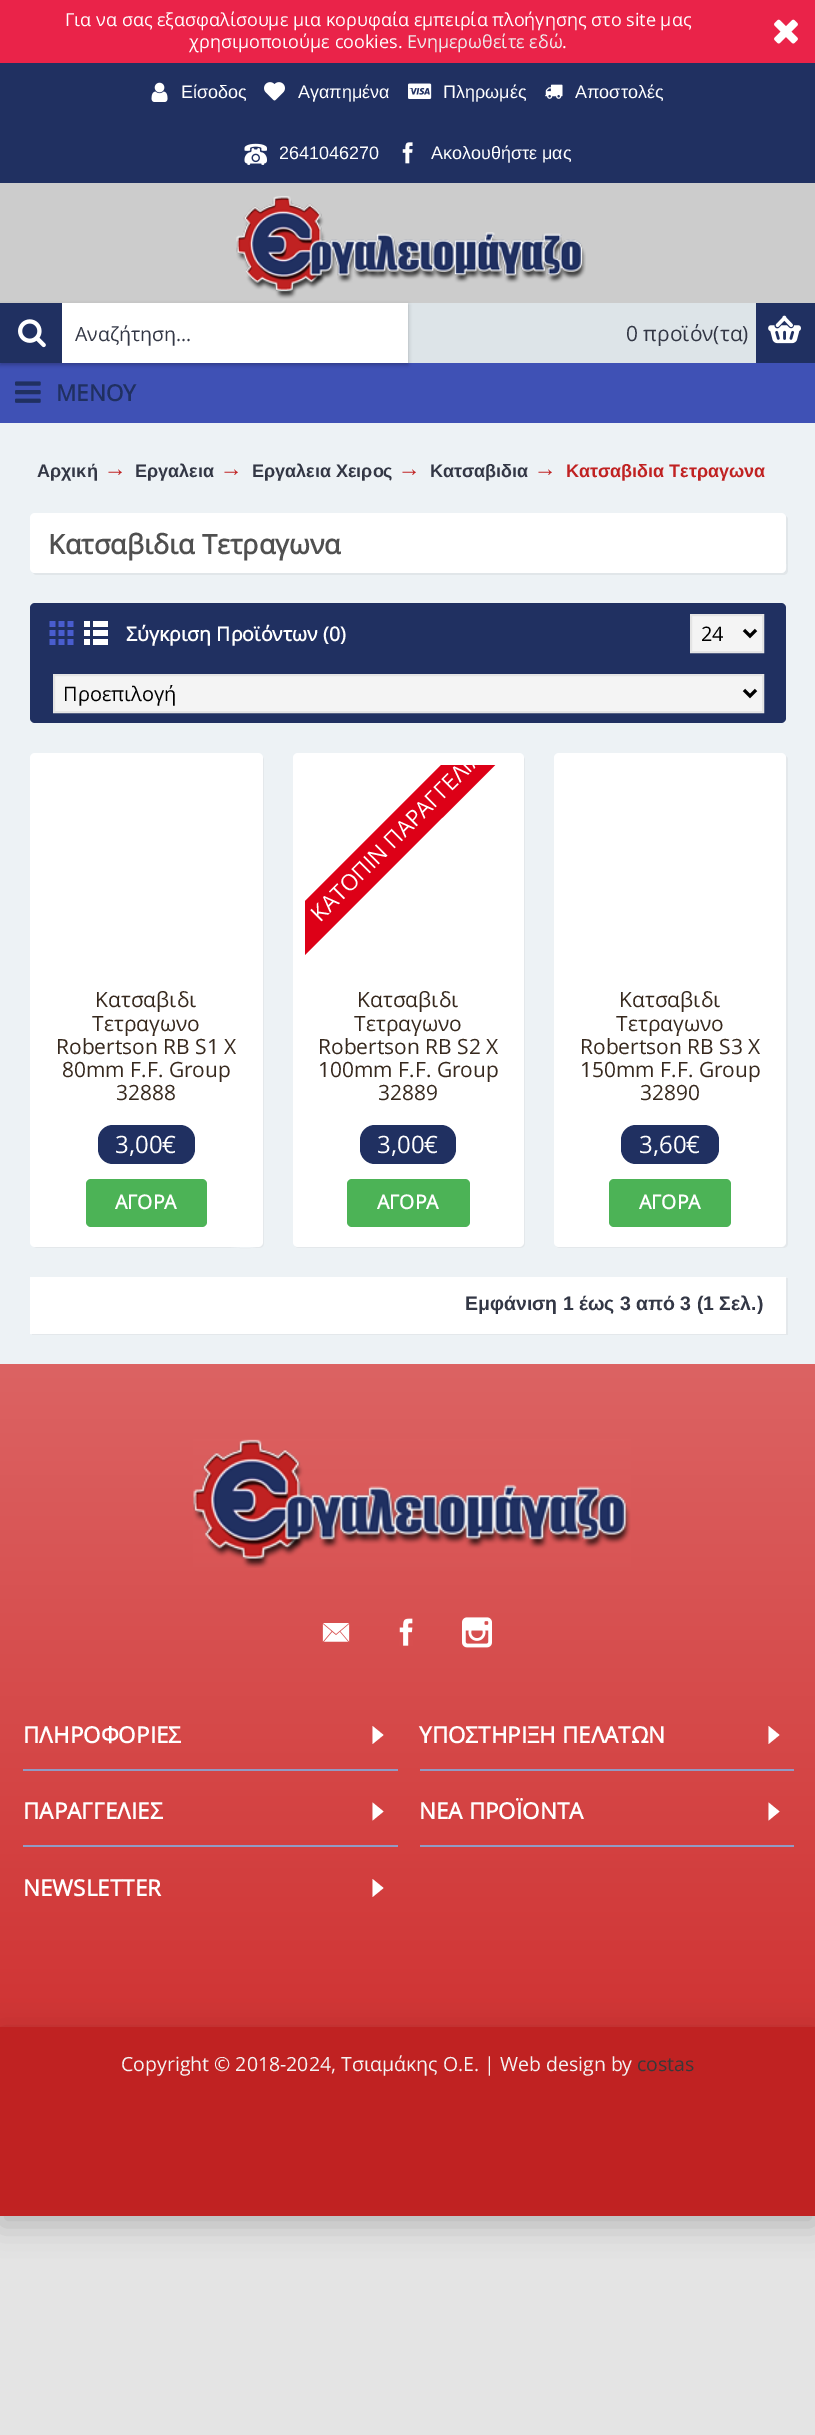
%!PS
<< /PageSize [815 2435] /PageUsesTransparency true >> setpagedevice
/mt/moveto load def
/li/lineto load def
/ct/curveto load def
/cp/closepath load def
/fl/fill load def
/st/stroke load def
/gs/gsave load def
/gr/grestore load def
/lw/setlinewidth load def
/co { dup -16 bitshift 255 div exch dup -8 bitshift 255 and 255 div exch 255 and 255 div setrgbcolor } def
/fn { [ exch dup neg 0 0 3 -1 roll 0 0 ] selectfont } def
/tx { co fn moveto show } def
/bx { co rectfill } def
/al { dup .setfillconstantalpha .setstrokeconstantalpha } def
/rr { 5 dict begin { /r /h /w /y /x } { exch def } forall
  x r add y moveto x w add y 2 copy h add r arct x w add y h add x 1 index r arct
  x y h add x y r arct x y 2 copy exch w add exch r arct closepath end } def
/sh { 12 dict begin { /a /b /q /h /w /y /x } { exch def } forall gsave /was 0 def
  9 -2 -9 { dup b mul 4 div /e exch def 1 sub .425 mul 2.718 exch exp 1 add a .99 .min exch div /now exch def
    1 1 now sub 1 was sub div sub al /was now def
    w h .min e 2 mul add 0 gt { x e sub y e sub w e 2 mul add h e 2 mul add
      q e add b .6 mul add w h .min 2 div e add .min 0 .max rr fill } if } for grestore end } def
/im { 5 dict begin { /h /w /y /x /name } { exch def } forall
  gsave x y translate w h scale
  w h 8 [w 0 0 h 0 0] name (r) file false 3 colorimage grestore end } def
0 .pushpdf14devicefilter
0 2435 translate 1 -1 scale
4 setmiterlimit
0 0 815 2435 16#E4E4E4 bx
0 0 815 63 16#EA2349 bx
(media/1.raw) 774 19 24 25 im
0 183 815 120 16#CCCCCC bx
0 63 815 120 16#203061 bx
(media/2.raw) 151 82 17 20 im
(media/3.raw) 264 82 21 19 im
(media/4.raw) 408 83 24 16 im
(media/5.raw) 545 84 18 15 im
(media/6.raw) 244 143 23 22 im
(media/7.raw) 402 142 11 22 im
(media/8.raw) 236 196 350 103 im
408 303 348 60 16#DDE4E8 bx
0 363 815 60 16#3F51B5 bx
16#000000 co
0 305 408 60 0 2 .25 sh
0 303 62 60 16#203061 bx
(media/9.raw) 18 319 28 29 im
62 303 346 60 16#FFFFFF bx
756 303 59 60 16#203061 bx
(media/10.raw) 768 315 33 29 im
(media/11.raw) 15 381 26 22 im
0 423 815 941 16#EDF2F5 bx
16#E1E6E9 co
33 573 mt 34 574 35 575 37 575 ct 783 575 li 786 575 788 573 788 570 ct 788 520 li 788 518 787 517 786 516 ct 786 560 li 786 563 788 573 782 573 ct cp fl
16#FFFFFF co
30 513 756 60 5 rr fl
16#203061 co
30 603 756 120 5 rr fl
(media/12.raw) 49 621 25 24 im
(media/13.raw) 84 621 24 24 im
16#F4F4F4 co
691 615 mt 763 615 li 763 652 li 691 652 li cp gs fl gr
16#E4E4E4 co
2 lw
st
16#000000 co
3 lw
744 630 mt 750 636 li 756 630 li st
16#F4F4F4 co
54 675 mt 763 675 li 763 712 li 54 712 li cp gs fl gr
16#E4E4E4 co
2 lw
st
16#000000 co
3 lw
744 690 mt 750 696 li 756 690 li st
16#E4E8EB co
33 1246 mt 34 1247 36 1248 37 1248 ct 259 1248 li 262 1248 264 1246 264 1243 ct 264 760 li 264 759 263 757 262 756 ct 262 1242 li 262 1253 223 1246 221 1246 ct cp fl
16#FFFFFF co
30 753 233 494 5 rr fl
16#203061 co
98 1125 97 39 15 rr fl
16#4CB356 co
86 1179 121 48 5 rr fl
16#E4E8EB co
295 1246 mt 296 1247 297 1248 299 1248 ct 520 1248 li 523 1248 525 1246 525 1243 ct 525 760 li 525 759 524 757 523 756 ct 524 1242 li 524 1244 521 1246 519 1246 ct 297 1246 li cp fl
16#FFFFFF co
293 753 231 494 5 rr fl
gs
305 765 207 209 rectclip
16#DD0017 co
238 968 mt 538 668 li 565 695 li 265 995 li cp fl
gr
16#203061 co
360 1125 96 39 15 rr fl
16#4CB356 co
347 1179 123 48 5 rr fl
16#E4E8EB co
556 1246 mt 557 1247 558 1248 560 1248 ct 783 1248 li 786 1248 788 1246 788 1243 ct 788 760 li 788 758 787 757 786 756 ct 786 1242 li 786 1244 784 1246 782 1246 ct 558 1246 li cp fl
16#FFFFFF co
554 753 232 494 5 rr fl
16#203061 co
621 1125 98 39 15 rr fl
16#4CB356 co
609 1179 122 48 5 rr fl
16#E4E8EB co
32 1334 mt 32 1335 li 788 1335 li 788 1278 li 786 1278 li 786 1334 li cp fl
30 1277 756 57 16#FFFFFF bx
gs 0 1364 mt 815 1364 li 815 2027 li 0 2027 li cp clip newpath
<< /ShadingType 2 /ColorSpace /DeviceRGB /Coords [408 2216 408 1364] /Extend [true true] /Function << /FunctionType 2 /Domain [0 1] /C0 [.804 .149 .149] /C1 [.863 .388 .388] /N 1 >> >> shfill gr
(media/14.raw) 193 1439 438 129 im
(media/15.raw) 322 1623 28 19 im
(media/16.raw) 399 1618 14 28 im
(media/17.raw) 462 1617 30 31 im
23 1769 375 2 16#929AC3 bx
16#FFFFFF co
372.5 1726 mt 372.5 1744 li 383.5 1735 li cp fl
420 1769 374 2 16#929AC3 bx
16#FFFFFF co
768.5 1726 mt 768.5 1744 li 779.5 1735 li cp fl
23 1845 375 2 16#929AC3 bx
16#FFFFFF co
372.5 1802.5 mt 372.5 1820.5 li 383.5 1811.5 li cp fl
420 1845 374 2 16#929AC3 bx
16#FFFFFF co
768.5 1802.5 mt 768.5 1820.5 li 779.5 1811.5 li cp fl
372.5 1879 mt 372.5 1897 li 383.5 1888 li cp fl
16#000000 co
0 2036 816 189 0 15 .2 sh
0 2027 815 189 16#C02222 bx
(Για να σας εξασφαλίσουμε μια κορυφαία εμπειρία πλοήγησης στο site μας) 65 26 /OpenSans-Regular 18 16#FFFFFF tx
(χρησιμοποιούμε cookies.) 189 48 /OpenSans-Regular 18 16#FFFFFF tx
(Ενημερωθείτε εδώ) 407 48 /OpenSans-Regular 18 16#EEEEEE tx
(.) 562 48 /OpenSans-Regular 18 16#FFFFFF tx
(Είσοδος) 181 98 /LiberationSans-Regular 18 16#FFFFFF tx
(Αγαπημένα) 298 98 /LiberationSans-Regular 18 16#FFFFFF tx
(Πληρωμές) 443 98 /LiberationSans-Regular 18 16#FFFFFF tx
(Αποστολές) 575 98 /LiberationSans-Regular 18 16#FFFFFF tx
(2641046270) 279 159 /LiberationSans-Regular 18 16#FFFFFF tx
(Ακολουθήστε μας) 431 159 /LiberationSans-Regular 18 16#FFFFFF tx
(Αναζήτηση...) 75 341 /OpenSans-Regular 19.5 16#333745 tx
(0 προϊόν\(τα\)) 626 341 /OpenSans-Regular 21 16#333745 tx
(ΜΕΝΟΥ) 56 401 /OpenSans-Bold 22.5 16#203061 tx
(Αρχική) 37 477 /LiberationSans-Bold 18 16#333745 tx
(→) 104 476 /LiberationSerif-Regular 22.5 16#C02222 tx
(Εργαλεια) 135 477 /LiberationSans-Bold 18 16#333745 tx
(→) 220 476 /LiberationSerif-Regular 22.5 16#C02222 tx
(Εργαλεια Χειρος) 252 477 /LiberationSans-Bold 18 16#333745 tx
(→) 398 476 /LiberationSerif-Regular 22.5 16#C02222 tx
(Κατσαβιδια) 430 477 /LiberationSans-Bold 18 16#333745 tx
(→) 534 476 /LiberationSerif-Regular 22.5 16#C02222 tx
(Κατσαβιδια Τετραγωνα) 566 477 /LiberationSans-Bold 18 16#C02222 tx
(Κατσαβιδια Τετραγωνα) 48 554 /OpenSans-Bold 27 16#505050 tx
(Σύγκριση Προϊόντων \(0\)) 126 641 /OpenSans-Bold 19.5 16#FFFFFF tx
(24) 701 641 /OpenSans-Regular 20 16#000000 tx
(Προεπιλογή) 63 701 /OpenSans-Regular 20 16#000000 tx
(Κατσαβιδι) 95 1007 /OpenSans-Regular 21 16#37291E tx
(Τετραγωνο) 92 1031 /OpenSans-Regular 21 16#37291E tx
(Robertson RB S1 X) 56 1054 /OpenSans-Regular 21 16#37291E tx
(80mm F.F. Group) 62 1077 /OpenSans-Regular 21 16#37291E tx
(32888) 116 1100 /OpenSans-Regular 21 16#37291E tx
(3,00€) 115 1153 /OpenSans-Regular 24 16#FFFFFF tx
(ΑΓΟΡΑ) 115 1209 /OpenSans-Bold 19.5 16#FFFFFF tx
gs
305 765 207 209 rectclip
/OpenSans-Regular 22.5 fn
gs 320 923 translate -45 rotate 0 0 mt (ΚΑΤΟΠΙΝ ΠΑΡΑΓΓΕΛΙΑΣ) show gr
gr
(Κατσαβιδι) 357 1007 /OpenSans-Regular 21 16#37291E tx
(Τετραγωνο) 354 1031 /OpenSans-Regular 21 16#37291E tx
(Robertson RB S2 X) 318 1054 /OpenSans-Regular 21 16#37291E tx
(100mm F.F. Group) 318 1077 /OpenSans-Regular 21 16#37291E tx
(32889) 378 1100 /OpenSans-Regular 21 16#37291E tx
(3,00€) 377 1153 /OpenSans-Regular 24 16#FFFFFF tx
(ΑΓΟΡΑ) 377 1209 /OpenSans-Bold 19.5 16#FFFFFF tx
(Κατσαβιδι) 619 1007 /OpenSans-Regular 21 16#37291E tx
(Τετραγωνο) 616 1031 /OpenSans-Regular 21 16#37291E tx
(Robertson RB S3 X) 580 1054 /OpenSans-Regular 21 16#37291E tx
(150mm F.F. Group) 580 1077 /OpenSans-Regular 21 16#37291E tx
(32890) 640 1100 /OpenSans-Regular 21 16#37291E tx
(3,60€) 639 1153 /OpenSans-Regular 24 16#FFFFFF tx
(ΑΓΟΡΑ) 639 1209 /OpenSans-Bold 19.5 16#FFFFFF tx
(Εμφάνιση 1 έως 3 από 3 \(1 Σελ.\)) 465 1310 /LiberationSans-Bold 19.5 16#333745 tx
(ΠΛΗΡΟΦΟΡΙΕΣ) 23 1743 /OpenSans-Bold 22.5 16#FFFFFF tx
(ΥΠΟΣΤΗΡΙΞΗ ΠΕΛΑΤΩΝ) 419 1743 /OpenSans-Bold 22.5 16#FFFFFF tx
(ΠΑΡΑΓΓΕΛΙΕΣ) 23 1819 /OpenSans-Bold 22.5 16#FFFFFF tx
(ΝΕΑ ΠΡΟΪΟΝΤΑ) 419 1819 /OpenSans-Bold 22.5 16#FFFFFF tx
(NEWSLETTER) 23 1896 /OpenSans-Bold 22.5 16#FFFFFF tx
(Copyright © 2018-2024, Τσιαμάκης Ο.Ε. | Web design by) 121 2071 /OpenSans-Regular 19.5 16#F4F4F4 tx
(costas) 637 2071 /OpenSans-Regular 19.5 16#383838 tx
.poppdf14devicefilter showpage
